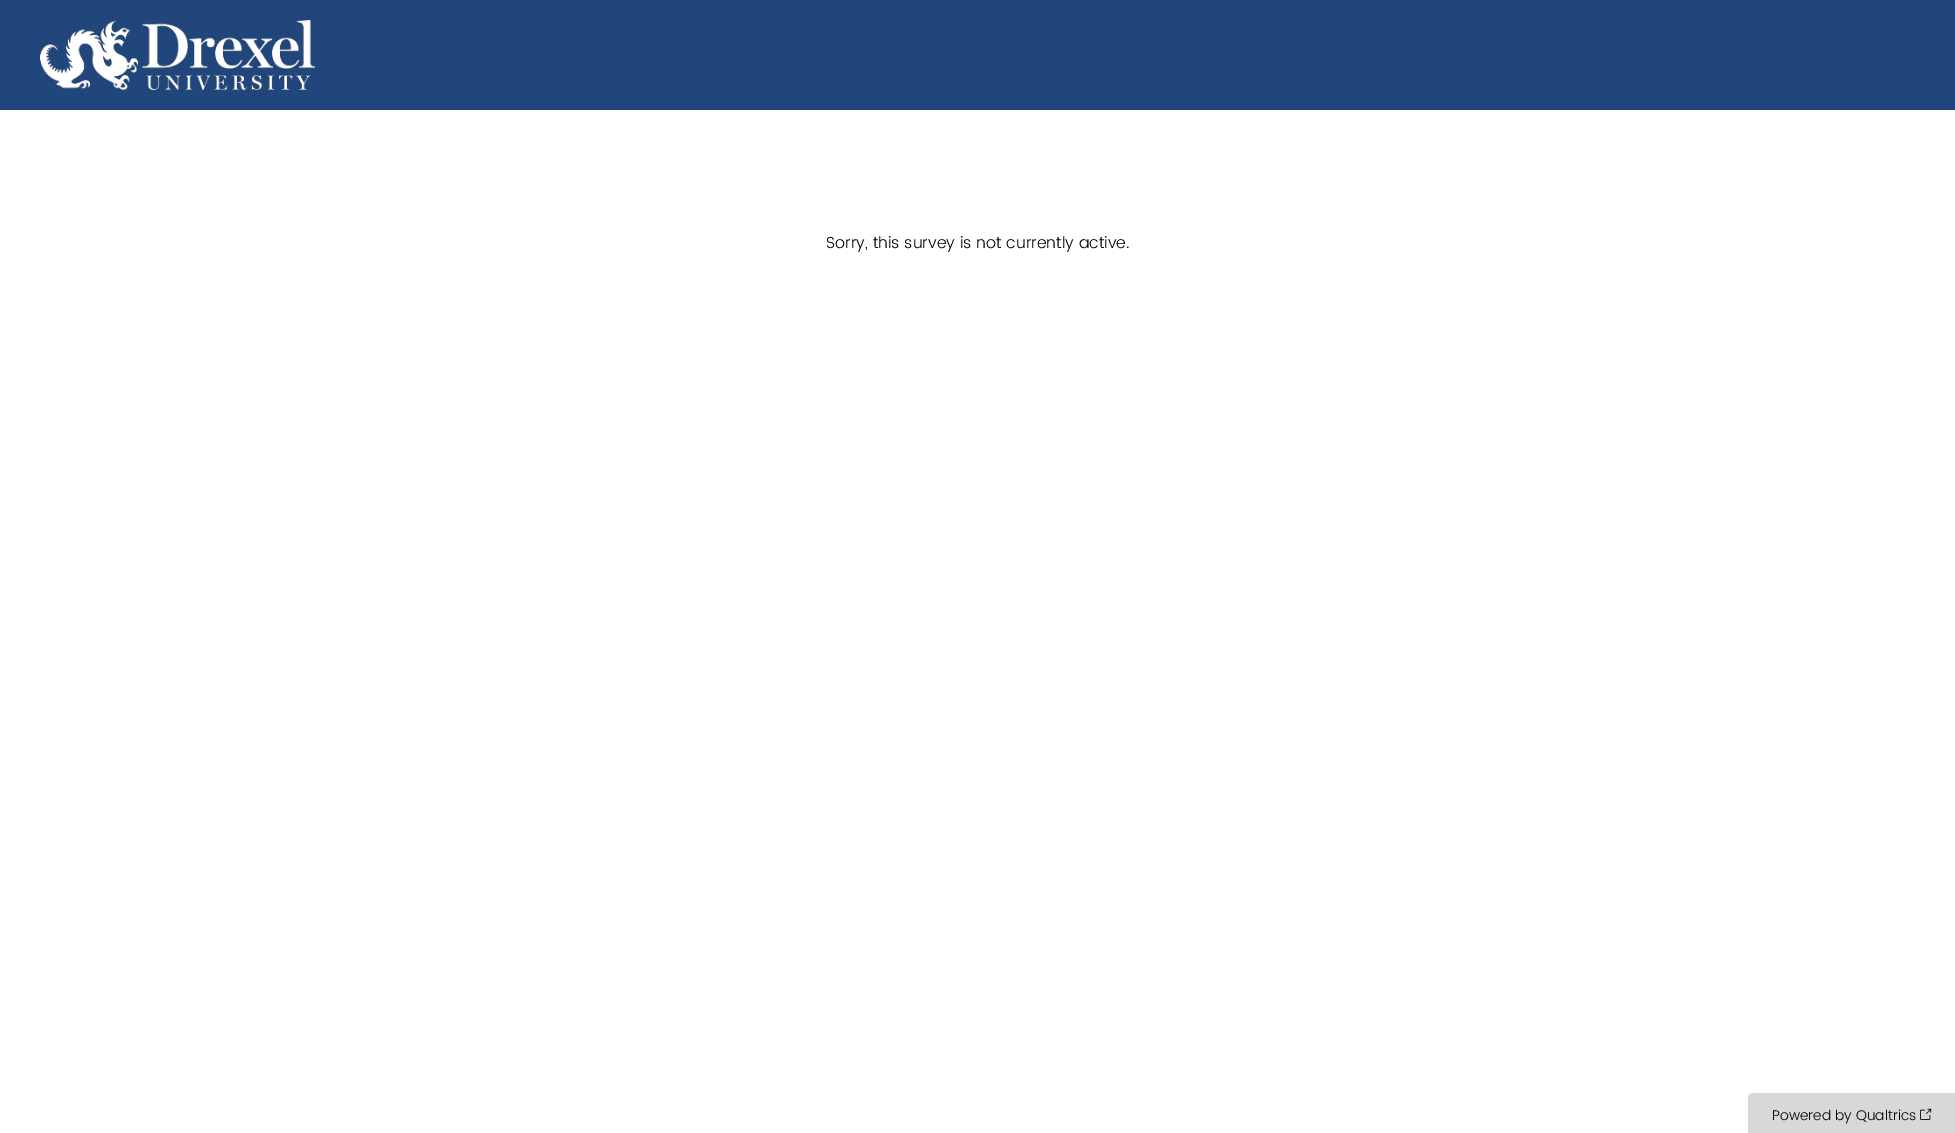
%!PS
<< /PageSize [1955 1133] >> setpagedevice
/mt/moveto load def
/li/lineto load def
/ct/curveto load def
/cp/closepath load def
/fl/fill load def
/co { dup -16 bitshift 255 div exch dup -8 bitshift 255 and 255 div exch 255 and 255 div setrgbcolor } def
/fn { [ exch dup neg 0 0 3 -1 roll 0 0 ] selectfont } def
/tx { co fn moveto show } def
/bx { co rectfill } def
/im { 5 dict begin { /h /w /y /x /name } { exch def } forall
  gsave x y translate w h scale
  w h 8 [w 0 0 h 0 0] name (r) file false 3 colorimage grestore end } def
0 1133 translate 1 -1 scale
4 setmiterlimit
0 0 1955 1133 16#FFFFFF bx
0 0 1955 110 16#21467B bx
(media/1.raw) 40 20 275 70 im
16#D8D8DA co
1753 1093 mt 1955 1093 li 1955 1133 li 1748 1133 li 1748 1098 li 1748 1095 1750 1093 1753 1093 ct cp fl
(media/2.raw) 1920 1108 12 12 im
(Sorry, this survey is not currently active.) 826 248 /Poppins-Light 16 16#000000 tx
(Powered by Qualtrics) 1772 1120 /Poppins-Light 14 16#000000 tx
showpage
